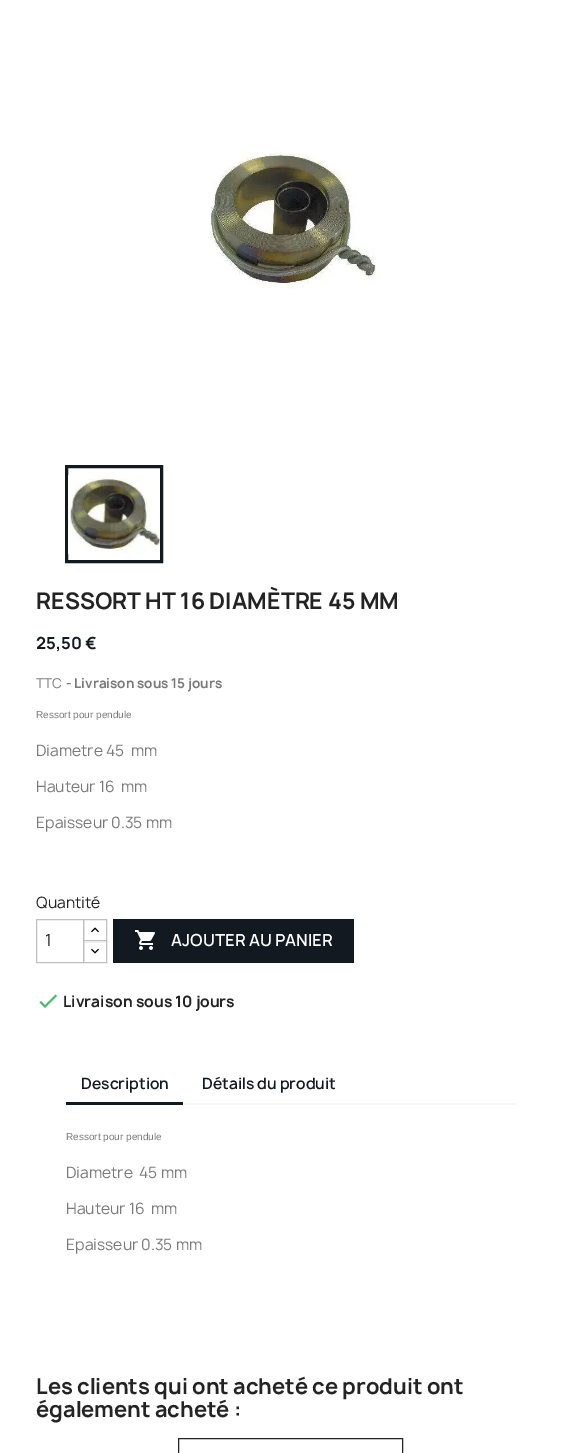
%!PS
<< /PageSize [581 1453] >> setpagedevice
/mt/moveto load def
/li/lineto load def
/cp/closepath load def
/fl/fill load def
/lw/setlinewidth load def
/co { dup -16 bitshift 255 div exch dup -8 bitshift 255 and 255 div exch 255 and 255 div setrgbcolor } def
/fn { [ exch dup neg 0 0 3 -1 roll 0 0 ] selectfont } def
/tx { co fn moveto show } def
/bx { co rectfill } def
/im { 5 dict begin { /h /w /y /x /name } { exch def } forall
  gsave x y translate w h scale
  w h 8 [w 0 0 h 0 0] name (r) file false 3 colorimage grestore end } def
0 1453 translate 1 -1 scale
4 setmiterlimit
0 0 581 1453 16#FFFFFF bx
(media/1.raw) 209 151 167 138 im
16#131921 co
3 lw
66.5 466.5 95 95 rectstroke
(media/2.raw) 68 475 92 79 im
16#BFBFBF co
1 lw
83.5 919.5 23 22 rectstroke
84 941 22 1 16#FFFFFF bx
16#BFBFBF co
83.5 940.5 23 22 rectstroke
36.5 919.5 47 43 rectstroke
(media/3.raw) 91 927 8 6 im
(media/4.raw) 91 948 8 6 im
113 919 241 44 16#131921 bx
(media/5.raw) 135 930 20 20 im
16#4CBB6C co
45 1005 mt 55.5 994.5 li 57 996 li 45 1008 li 39.5 1002.5 li 41 1001 li cp fl
183 1103 333 2 16#F6F6F6 bx
66 1102 117 3 16#131921 bx
16#232323 co
178.5 1438.5 224 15 rectstroke
(RESSORT HT 16 DIAMÈTRE 45 MM) 36 609 /Manrope-Bold 22 16#232323 tx
(25,50 €) 36 649 /Manrope-Bold 16 16#131921 tx
(TTC) 36 688 /Manrope-Regular 13 16#7A7A7A tx
(-) 66 688 /Manrope-Bold 13 16#7A7A7A tx
(Livraison sous 15 jours) 74 688 /Manrope-Bold 13 16#7A7A7A tx
(Ressort pour pendule) 36 718 /LiberationSans-Regular 10 16#7A7A7A tx
(Diametre 45  mm) 36 756 /Manrope-Regular 15 16#7A7A7A tx
(Hauteur 16  mm) 36 792 /Manrope-Regular 15 16#7A7A7A tx
(Epaisseur 0.35 mm) 36 828 /Manrope-Regular 15 16#7A7A7A tx
(Quantité) 36 908 /Manrope-Regular 15 16#232323 tx
(1) 45 946 /Manrope-Regular 16 16#232323 tx
(AJOUTER AU PANIER) 171 946 /Manrope-SemiBold 16 16#FFFFFF tx
(Livraison sous 10 jours) 63 1007 /Manrope-Bold 15 16#232323 tx
(Description) 81 1089 /Manrope-SemiBold 15 16#131921 tx
(Détails du produit) 202 1089 /Manrope-SemiBold 15 16#131921 tx
(Ressort pour pendule) 66 1140 /LiberationSans-Regular 10 16#7A7A7A tx
(Diametre  45 mm) 66 1178 /Manrope-Regular 15 16#7A7A7A tx
(Hauteur 16  mm) 66 1214 /Manrope-Regular 15 16#7A7A7A tx
(Epaisseur 0.35 mm) 66 1250 /Manrope-Regular 15 16#7A7A7A tx
(Les clients qui ont acheté ce produit ont) 36 1394 /Manrope-Bold 21 16#232323 tx
(également acheté :) 36 1417 /Manrope-Bold 21 16#232323 tx
showpage
